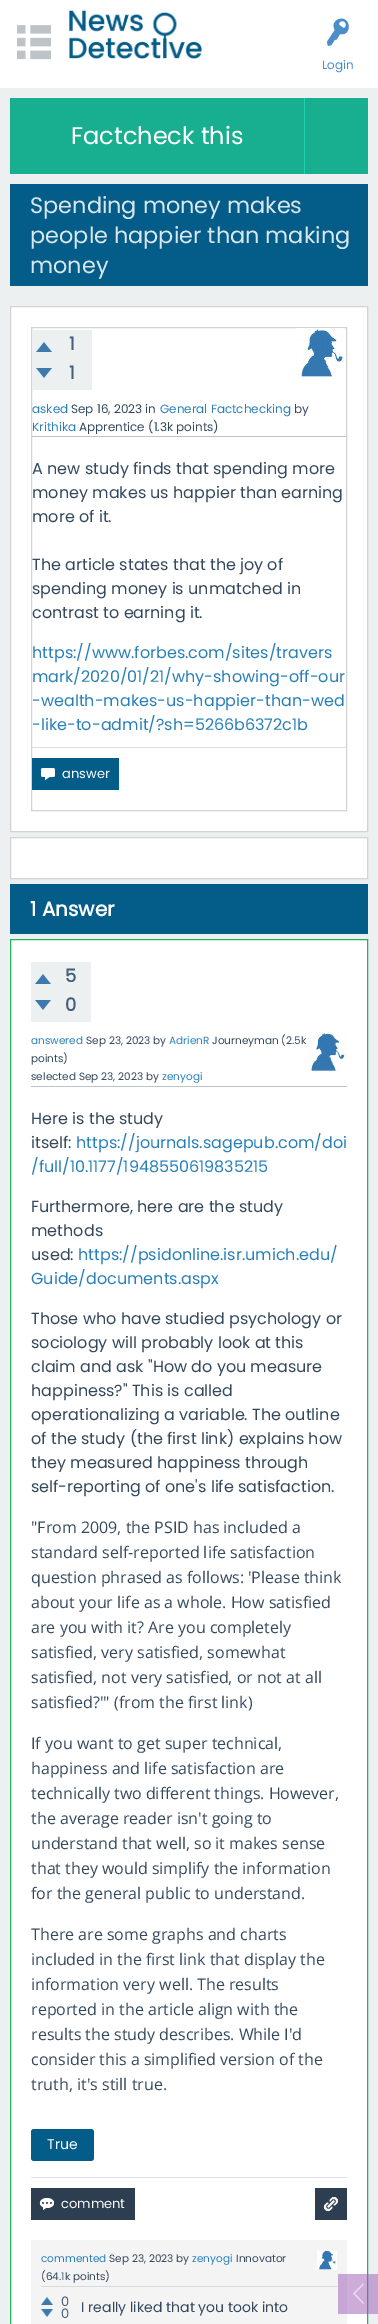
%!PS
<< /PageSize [378 2324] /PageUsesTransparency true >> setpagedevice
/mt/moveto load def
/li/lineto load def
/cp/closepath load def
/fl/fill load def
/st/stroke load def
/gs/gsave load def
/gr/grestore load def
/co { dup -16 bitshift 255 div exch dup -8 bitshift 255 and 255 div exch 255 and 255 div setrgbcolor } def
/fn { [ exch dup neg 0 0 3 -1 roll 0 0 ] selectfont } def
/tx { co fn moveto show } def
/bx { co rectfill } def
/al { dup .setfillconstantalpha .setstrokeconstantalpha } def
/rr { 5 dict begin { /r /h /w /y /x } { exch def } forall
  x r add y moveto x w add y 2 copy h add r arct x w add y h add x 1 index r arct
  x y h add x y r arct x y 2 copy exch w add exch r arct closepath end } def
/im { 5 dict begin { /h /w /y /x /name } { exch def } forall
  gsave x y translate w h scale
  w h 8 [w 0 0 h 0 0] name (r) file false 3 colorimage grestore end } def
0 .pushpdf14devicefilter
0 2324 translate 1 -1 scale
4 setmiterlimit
0 0 378 2324 16#ECF0F1 bx
0 0 378 88 16#FFFFFF bx
(media/1.raw) 17 25 34 35 im
(media/2.raw) 69 10 133 49 im
(media/3.raw) 327 18 22 28 im
10 98 294 76 16#18AF91 bx
305 98 63 76 16#18AF91 bx
304 98 1 76 16#1DD2AF bx
10 184 358 102 16#045D89 bx
16#FFFFFF co
10.5 306.5 mt 367.5 306.5 li 367.5 831.5 li 10.5 831.5 li cp gs fl gr
16#D3D3D3 co
st
31.5 327.5 315 483 rectstroke
32 330 60 60 16#ECF0F1 bx
(media/4.raw) 36 342 16 10 im
(media/5.raw) 36 368 16 10 im
(media/6.raw) 296 328 48 50 im
32 436 314 1 16#BDC3C7 bx
32 747 314 1 16#DEE1E3 bx
32 758 87 32 16#045D89 bx
(media/7.raw) 40 768 15 12 im
16#FFFFFF co
10.5 837.5 mt 367.5 837.5 li 367.5 878.5 li 10.5 878.5 li cp gs fl gr
16#D3D3D3 co
st
10 884 358 50 16#045D89 bx
16#FFFFFF co
10.5 939.5 mt 367.5 939.5 li 367.5 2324.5 li 10.5 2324.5 li cp gs fl gr
16#27AE60 co
st
31 962 60 60 16#ECF0F1 bx
(media/4.raw) 35 974 16 10 im
(media/5.raw) 35 1000 16 10 im
31 1086 316 1 16#BDC3C7 bx
(media/8.raw) 307 1032 40 40 im
16#045D89 co
31 2129 63 32 3 rr fl
31 2177 316 1 16#DEE1E3 bx
31 2188 104 32 16#2C3E50 bx
(media/9.raw) 39 2198 15 12 im
315 2188 32 32 16#2C3E50 bx
(media/10.raw) 323 2197 15 15 im
31 2240 316 84 16#F4F4F4 bx
41 2286 296 1 16#D6DADB bx
(media/11.raw) 317 2250 20 20 im
(media/12.raw) 41 2297 12 8 im
(media/13.raw) 41 2309 12 8 im
0.5 al
338 2274 40 40 16#9B59B6 bx
1 al
(media/14.raw) 353 2283 11 21 im
(Login) 322 69 /Poppins-Regular 12 16#4B8EC7 tx
(Factcheck this) 71 144 /Poppins-Regular 24 16#FFFFFF tx
(Spending money makes) 30 213 /Poppins-Regular 22.4 16#D9E7ED tx
(people happier than making) 30 243 /Poppins-Regular 22.4 16#D9E7ED tx
(money) 30 273 /Poppins-Regular 22.4 16#D9E7ED tx
(1) 69 350 /Poppins-Bold 18 16#445F7A tx
(1) 69 379 /Poppins-Bold 18 16#445F7A tx
(asked) 32 413 /Poppins-Regular 12 16#2980B9 tx
(Sep 16, 2023 in) 71 413 /Poppins-Regular 12 16#34495E tx
(General Factchecking) 160 413 /Poppins-Regular 12 16#2980B9 tx
(by) 294 413 /Poppins-Regular 12 16#34495E tx
(Krithika) 32 431 /Poppins-Regular 12 16#2980B9 tx
(Apprentice \(1.3k points\)) 79 431 /Poppins-Regular 12 16#34495E tx
(A new study finds that spending more) 32 474 /Poppins-Regular 16 16#34495E tx
(money makes us happier than earning) 32 498 /Poppins-Regular 16 16#34495E tx
(more of it.) 32 522 /Poppins-Regular 16 16#34495E tx
(The article states that the joy of) 32 570 /Poppins-Regular 16 16#34495E tx
(spending money is unmatched in) 32 594 /Poppins-Regular 16 16#34495E tx
(contrast to earning it.) 32 618 /Poppins-Regular 16 16#34495E tx
(https://www.forbes.com/sites/travers) 32 658 /Poppins-Regular 16 16#2980B9 tx
(mark/2020/01/21/why-showing-off-our) 32 682 /Poppins-Regular 16 16#2980B9 tx
(-wealth-makes-us-happier-than-wed) 32 706 /Poppins-Regular 16 16#2980B9 tx
(-like-to-admit/?sh=5266b6372c1b) 32 730 /Poppins-Regular 16 16#2980B9 tx
(answer) 62 778 /Poppins-Regular 13 16#FFFFFF tx
(1 Answer) 30 916 /Poppins-Bold 20 16#FFFFFF tx
(5) 65 982 /Poppins-Bold 18 16#445F7A tx
(0) 65 1011 /Poppins-Bold 18 16#445F7A tx
(answered) 31 1044 /Poppins-Regular 10.5 16#2980B9 tx
(Sep 23, 2023 by) 86 1044 /Poppins-Regular 10.5 16#34495E tx
(AdrienR) 169 1044 /Poppins-Regular 10.5 16#2980B9 tx
(Journeyman \(2.5k) 212 1044 /Poppins-Regular 10.5 16#34495E tx
(points\)) 31 1062 /Poppins-Regular 10.5 16#34495E tx
(selected Sep 23, 2023 by) 31 1080 /Poppins-Regular 10.5 16#34495E tx
(zenyogi) 162 1080 /Poppins-Regular 10.5 16#2980B9 tx
(Here is the study) 31 1124 /Poppins-Regular 16 16#34495E tx
(itself:) 31 1148 /Poppins-Regular 16 16#34495E tx
(https://journals.sagepub.com/doi) 76 1148 /Poppins-Regular 16 16#2980B9 tx
(/full/10.1177/1948550619835215) 31 1172 /Poppins-Regular 16 16#2980B9 tx
(Furthermore, here are the study) 31 1212 /Poppins-Regular 16 16#34495E tx
(methods) 31 1236 /Poppins-Regular 16 16#34495E tx
(used:) 31 1260 /Poppins-Regular 16 16#34495E tx
(https://psidonline.isr.umich.edu/) 78 1260 /Poppins-Regular 16 16#2980B9 tx
(Guide/documents.aspx) 31 1284 /Poppins-Regular 16 16#2980B9 tx
(Those who have studied psychology or) 31 1324 /Poppins-Regular 16 16#34495E tx
(sociology will probably look at this) 31 1348 /Poppins-Regular 16 16#34495E tx
(claim and ask "How do you measure) 31 1372 /Poppins-Regular 16 16#34495E tx
(happiness?" This is called) 31 1396 /Poppins-Regular 16 16#34495E tx
(operationalizing a variable. The outline) 31 1420 /Poppins-Regular 16 16#34495E tx
(of the study \(the first link\) explains how) 31 1444 /Poppins-Regular 16 16#34495E tx
(they measured happiness through) 31 1468 /Poppins-Regular 16 16#34495E tx
(self-reporting of one's life satisfaction.) 31 1492 /Poppins-Regular 16 16#34495E tx
("From 2009, the PSID has included a) 31 1533 /OpenSans-Regular 16 16#34495E tx
(standard self-reported life satisfaction) 31 1558 /OpenSans-Regular 16 16#34495E tx
(question phrased as follows: 'Please think) 31 1583 /OpenSans-Regular 16 16#34495E tx
(about your life as a whole. How satisfied) 31 1608 /OpenSans-Regular 16 16#34495E tx
(are you with it? Are you completely) 31 1633 /OpenSans-Regular 16 16#34495E tx
(satisfied, very satisfied, somewhat) 31 1658 /OpenSans-Regular 16 16#34495E tx
(satisfied, not very satisfied, or not at all) 31 1683 /OpenSans-Regular 16 16#34495E tx
(satisfied?'" \(from the first link\)) 31 1708 /OpenSans-Regular 16 16#34495E tx
(If you want to get super technical,) 31 1749 /OpenSans-Regular 16 16#34495E tx
(happiness and life satisfaction are) 31 1774 /OpenSans-Regular 16 16#34495E tx
(technically two different things. However,) 31 1799 /OpenSans-Regular 16 16#34495E tx
(the average reader isn't going to) 31 1824 /OpenSans-Regular 16 16#34495E tx
(understand that well, so it makes sense) 31 1849 /OpenSans-Regular 16 16#34495E tx
(that they would simplify the information) 31 1874 /OpenSans-Regular 16 16#34495E tx
(for the general public to understand.) 31 1899 /OpenSans-Regular 16 16#34495E tx
(There are some graphs and charts) 31 1940 /OpenSans-Regular 16 16#34495E tx
(included in the first link that display the) 31 1965 /OpenSans-Regular 16 16#34495E tx
(information very well. The results) 31 1990 /OpenSans-Regular 16 16#34495E tx
(reported in the article align with the) 31 2015 /OpenSans-Regular 16 16#34495E tx
(results the study describes. While I'd) 31 2040 /OpenSans-Regular 16 16#34495E tx
(consider this a simplified version of the) 31 2065 /OpenSans-Regular 16 16#34495E tx
(truth, it's still true.) 31 2090 /OpenSans-Regular 16 16#34495E tx
(True) 47 2149 /Poppins-Regular 14 16#FFFFFF tx
(comment) 61 2208 /Poppins-Regular 13 16#FFFFFF tx
(commented) 41 2262 /Poppins-Regular 10.5 16#2980B9 tx
(Sep 23, 2023 by) 109 2262 /Poppins-Regular 10.5 16#34495E tx
(zenyogi) 192 2262 /Poppins-Regular 10.5 16#2980B9 tx
(Innovator) 236 2262 /Poppins-Regular 10.5 16#34495E tx
(\(64.1k points\)) 41 2280 /Poppins-Regular 10.5 16#34495E tx
(0) 61 2306 /Poppins-Regular 13 16#445F7A tx
(0) 61 2318 /Poppins-Regular 13 16#445F7A tx
(I really liked that you took into) 81 2312 /Poppins-Regular 14 16#34495E tx
.poppdf14devicefilter showpage
